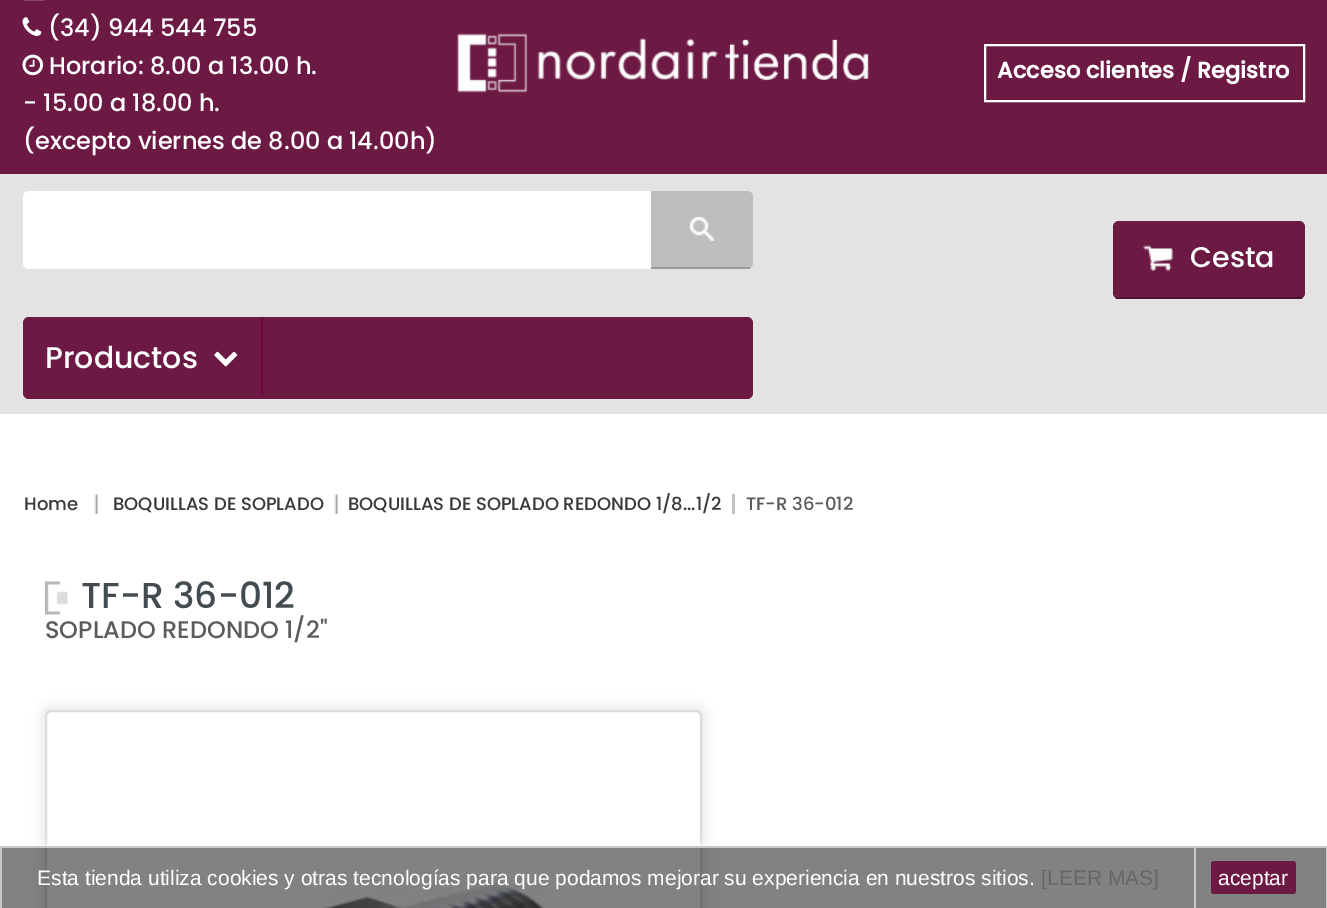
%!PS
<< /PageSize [1327 908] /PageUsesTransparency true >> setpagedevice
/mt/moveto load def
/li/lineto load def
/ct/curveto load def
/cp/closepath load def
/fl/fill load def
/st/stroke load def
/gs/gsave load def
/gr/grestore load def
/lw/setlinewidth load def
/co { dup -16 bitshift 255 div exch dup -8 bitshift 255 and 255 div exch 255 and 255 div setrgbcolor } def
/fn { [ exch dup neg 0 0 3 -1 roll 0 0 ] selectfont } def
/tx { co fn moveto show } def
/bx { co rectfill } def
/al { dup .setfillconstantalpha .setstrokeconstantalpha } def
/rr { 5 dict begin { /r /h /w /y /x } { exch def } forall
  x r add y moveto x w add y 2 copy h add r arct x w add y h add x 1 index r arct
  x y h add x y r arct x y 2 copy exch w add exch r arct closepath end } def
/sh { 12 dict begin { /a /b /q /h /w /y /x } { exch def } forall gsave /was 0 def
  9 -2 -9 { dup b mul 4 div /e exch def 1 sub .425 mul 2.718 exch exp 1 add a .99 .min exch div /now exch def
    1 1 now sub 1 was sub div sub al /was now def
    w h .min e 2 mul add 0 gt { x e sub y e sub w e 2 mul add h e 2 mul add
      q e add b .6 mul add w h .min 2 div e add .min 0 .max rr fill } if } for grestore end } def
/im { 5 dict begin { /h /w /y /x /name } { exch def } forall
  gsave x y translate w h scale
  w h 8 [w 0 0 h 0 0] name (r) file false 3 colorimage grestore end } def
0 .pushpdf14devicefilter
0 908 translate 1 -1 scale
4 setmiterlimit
0 0 1327 908 16#FFFFFF bx
0 0 1327 174 16#6C1A44 bx
(media/1.raw) 24 0 21 1 im
(media/2.raw) 22 17 20 19 im
(media/3.raw) 22 54 22 22 im
(media/4.raw) 456 33 413 60 im
16#FFFFFF co
2 lw
985 45 319 56 rectstroke
0 174 1327 240 16#E4E2E2 bx
16#FFFFFF co
23 191 730 78 6 rr fl
16#BFBDBD co
651 191 mt 747 191 li 750.5 191 753 193.5 753 197 ct 753 263 li 753 266.5 750.5 269 747 269 ct 651 269 li cp fl
(media/5.raw) 690 217 24 24 im
651 267 99 2 16#9D9C9C bx
16#6C1A44 co
1113 221 192 78 6 rr fl
(media/6.raw) 1143 245 30 26 im
1116 297 186 2 16#4B1330 bx
16#6C1A44 co
23 317 730 82 6 rr fl
261 317 2 78 16#700038 bx
(media/7.raw) 214 351 24 16 im
(media/8.raw) 94 494 4 20 im
(media/8.raw) 334 494 4 20 im
732 494 3 20 16#C3C3C3 bx
(media/9.raw) 45 581 23 34 im
16#E6E6E6 co
42 707 663 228 9 6 1 sh
16#FFFFFF co
46 711 655 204 5 rr gs fl gr
16#DBDBDB co
st
(media/10.raw) 323 884 222 24 im
gs
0 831 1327 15 rectclip
16#FFFFFF co
0 846 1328 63 0 7.5 1 sh
gr
0.49 al
2 848 1324 60 16#000000 bx
1 al
1194 846 133 2 16#C9C6C6 bx
1194 846 2 62 16#C9C6C6 bx
0 846 1196 2 16#C9C6C6 bx
0 846 2 62 16#C9C6C6 bx
1326 846 1 62 16#C9C6C6 bx
16#6C1A44 co
1211 861 85 33 3 rr fl
(\(34\) 944 544 755) 48 36 /Poppins-Medium 24 16#FFFFFF tx
(Horario: 8.00 a 13.00 h.) 49 74 /Poppins-Medium 24 16#FFFFFF tx
(- 15.00 a 18.00 h.) 23 111 /Poppins-Medium 24 16#FFFFFF tx
(\(excepto viernes de 8.00 a 14.00h\)) 23 149 /Poppins-Medium 24 16#FFFFFF tx
(Acceso clientes / Registro) 997 78 /Poppins-Bold 22.5 16#FFFFFF tx
(Cesta) 1190 267 /Poppins-Medium 28.5 16#FFFFFF tx
(Productos) 45 368 /Poppins-Medium 30 16#FFFFFF tx
(Home) 24 510 /Poppins-Medium 18 16#3A3A38 tx
(BOQUILLAS DE SOPLADO) 113 510 /Poppins-Medium 18 16#3A3A38 tx
(BOQUILLAS DE SOPLADO REDONDO 1/8...1/2) 348 510 /Poppins-Medium 18 16#3A3A38 tx
(TF-R 36-012) 746 510 /Poppins-Medium 18 16#5E5B5B tx
(TF-R 36-012) 81 608 /Poppins-Medium 36 16#424B50 tx
(SOPLADO REDONDO 1/2") 45 638 /Poppins-Medium 24 16#5E5B5B tx
(Esta tienda utiliza cookies y otras tecnologías para que podamos mejorar su experiencia en nuestros sitios.) 37 885 /LiberationSans-Regular 21 16#FFFFFF tx
([LEER MAS]) 1041 885 /LiberationSans-Regular 21 16#666666 tx
(aceptar) 1218 885 /LiberationSans-Regular 21 16#FFFFFF tx
.poppdf14devicefilter showpage
